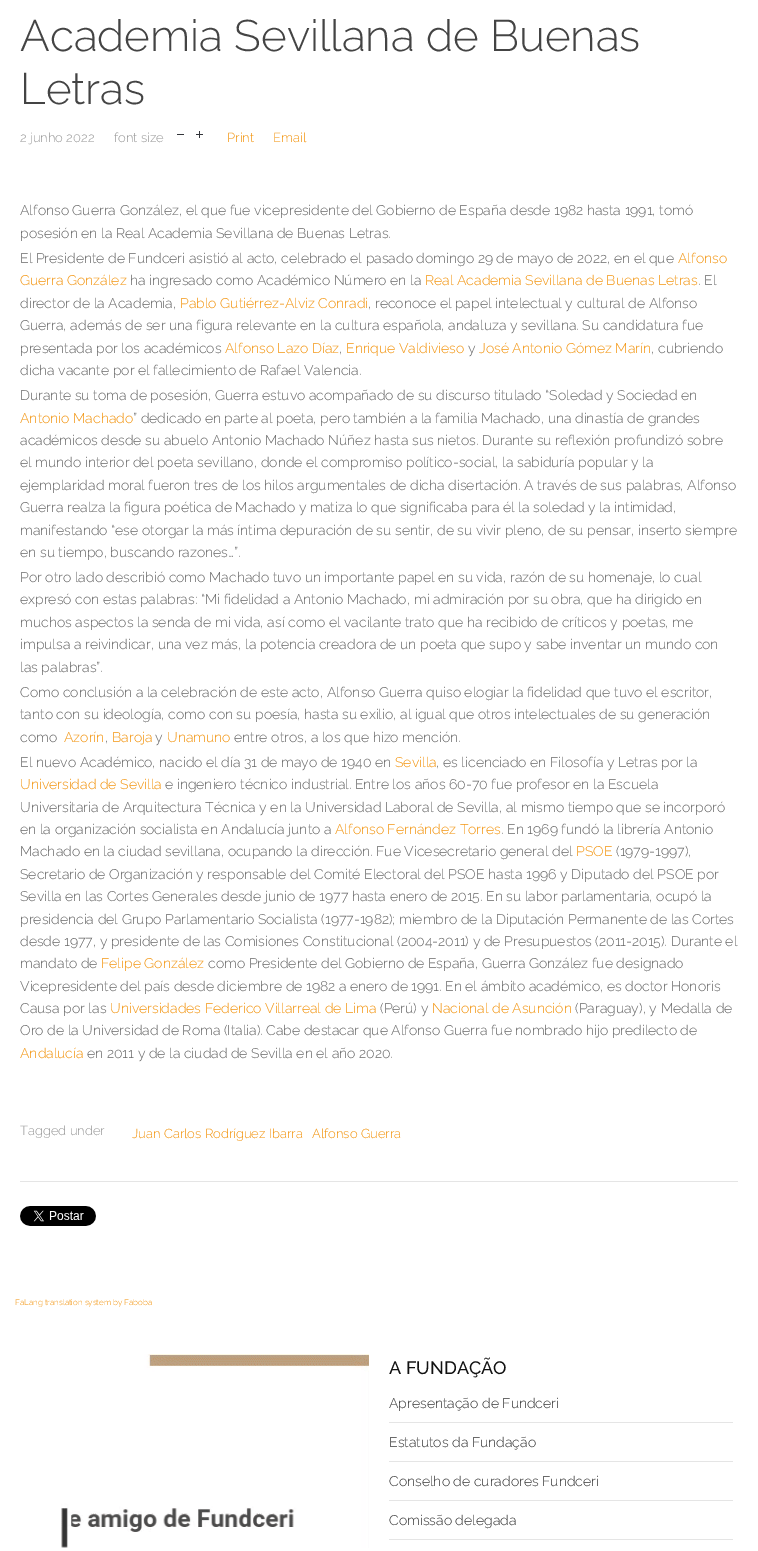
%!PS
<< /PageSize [758 1551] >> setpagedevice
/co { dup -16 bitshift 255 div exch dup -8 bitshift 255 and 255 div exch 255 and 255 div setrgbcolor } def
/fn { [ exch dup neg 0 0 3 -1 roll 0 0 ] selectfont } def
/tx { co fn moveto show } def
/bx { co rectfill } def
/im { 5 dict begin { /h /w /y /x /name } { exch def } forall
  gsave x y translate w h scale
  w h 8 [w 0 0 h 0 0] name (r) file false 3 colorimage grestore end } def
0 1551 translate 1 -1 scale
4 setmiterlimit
0 0 758 1551 16#FFFFFF bx
177 134 7 1 16#33353A bx
(media/1.raw) 196 131 7 7 im
20 1181 718 1 16#E5E5E5 bx
(media/2.raw) 20 1206 76 20 im
(media/3.raw) 61 1354 308 194 im
389 1422 344 1 16#E5E5E5 bx
389 1461 344 1 16#E5E5E5 bx
389 1500 344 1 16#E5E5E5 bx
389 1539 344 1 16#E5E5E5 bx
(Academia Sevillana de Buenas) 20 51 /Raleway-Light 44 16#444444 tx
(Letras) 20 104 /Raleway-Light 44 16#444444 tx
(2 junho 2022) 20 142 /Raleway-Light 13 16#999999 tx
(font size) 114 142 /Raleway-Light 13 16#999999 tx
(Print) 227 142 /Raleway-Light 13 16#F3940D tx
(Email) 273 142 /Raleway-Light 13 16#F3940D tx
(Alfonso Guerra González, el que fue vicepresidente del Gobierno de España desde 1982 hasta 1991, tomó) 20 215 /Raleway-Light 14 16#666666 tx
(posesión en la Real Academia Sevillana de Buenas Letras.) 20 238 /Raleway-Light 14 16#666666 tx
(El Presidente de Fundceri asistió al acto, celebrado el pasado domingo 29 de mayo de 2022, en el que) 20 263 /Raleway-Light 14 16#666666 tx
(Alfonso) 678 263 /Raleway-Light 14 16#F3940D tx
(Guerra González) 20 285 /Raleway-Light 14 16#F3940D tx
(ha ingresado como Académico Número en la) 130 285 /Raleway-Light 14 16#666666 tx
(Real Academia Sevillana de Buenas Letras) 425 285 /Raleway-Light 14 16#F3940D tx
(. El) 698 285 /Raleway-Light 14 16#666666 tx
(director de la Academia,) 20 308 /Raleway-Light 14 16#666666 tx
(Pablo Gutiérrez-Alviz Conradi) 180 308 /Raleway-Light 14 16#F3940D tx
(, reconoce el papel intelectual y cultural de Alfonso) 368 308 /Raleway-Light 14 16#666666 tx
(Guerra, además de ser una figura relevante en la cultura española, andaluza y sevillana. Su candidatura fue) 20 330 /Raleway-Light 14 16#666666 tx
(presentada por los académicos) 20 353 /Raleway-Light 14 16#666666 tx
(Alfonso Lazo Díaz) 225 353 /Raleway-Light 14 16#F3940D tx
(,) 339 353 /Raleway-Light 14 16#666666 tx
(Enrique Valdivieso) 346 353 /Raleway-Light 14 16#F3940D tx
(y) 468 353 /Raleway-Light 14 16#666666 tx
(José Antonio Gómez Marín) 479 353 /Raleway-Light 14 16#F3940D tx
(, cubriendo) 651 353 /Raleway-Light 14 16#666666 tx
(dicha vacante por el fallecimiento de Rafael Valencia.) 20 375 /Raleway-Light 14 16#666666 tx
(Durante su toma de posesión, Guerra estuvo acompañado de su discurso titulado “Soledad y Sociedad en) 20 400 /Raleway-Light 14 16#666666 tx
(Antonio Machado) 20 423 /Raleway-Light 14 16#F3940D tx
(” dedicado en parte al poeta, pero también a la familia Machado, una dinastía de grandes) 133 423 /Raleway-Light 14 16#666666 tx
(académicos desde su abuelo Antonio Machado Núñez hasta sus nietos. Durante su reflexión profundizó sobre) 20 445 /Raleway-Light 14 16#666666 tx
(el mundo interior del poeta sevillano, donde el compromiso político-social, la sabiduría popular y la) 20 467 /Raleway-Light 14 16#666666 tx
(ejemplaridad moral fueron tres de los hilos argumentales de dicha disertación. A través de sus palabras, Alfonso) 20 490 /Raleway-Light 14 16#666666 tx
(Guerra realza la figura poética de Machado y matiza lo que significaba para él la soledad y la intimidad,) 20 512 /Raleway-Light 14 16#666666 tx
(manifestando “ese otorgar la más íntima depuración de su sentir, de su vivir pleno, de su pensar, inserto siempre) 20 535 /Raleway-Light 14 16#666666 tx
(en su tiempo, buscando razones…”.) 20 557 /Raleway-Light 14 16#666666 tx
(Por otro lado describió como Machado tuvo un importante papel en su vida, razón de su homenaje, lo cual) 20 582 /Raleway-Light 14 16#666666 tx
(expresó con estas palabras: “Mi fidelidad a Antonio Machado, mi admiración por su obra, que ha dirigido en) 20 604 /Raleway-Light 14 16#666666 tx
(muchos aspectos la senda de mi vida, así como el vacilante trato que ha recibido de críticos y poetas, me) 20 627 /Raleway-Light 14 16#666666 tx
(impulsa a reivindicar, una vez más, la potencia creadora de un poeta que supo y sabe inventar un mundo con) 20 649 /Raleway-Light 14 16#666666 tx
(las palabras”.) 20 672 /Raleway-Light 14 16#666666 tx
(Como conclusión a la celebración de este acto, Alfonso Guerra quiso elogiar la fidelidad que tuvo el escritor,) 20 697 /Raleway-Light 14 16#666666 tx
(tanto con su ideología, como con su poesía, hasta su exilio, al igual que otros intelectuales de su generación) 20 719 /Raleway-Light 14 16#666666 tx
(como) 20 742 /Raleway-Light 14 16#666666 tx
(Azorín) 64 742 /Raleway-Light 14 16#F3940D tx
(,) 105 742 /Raleway-Light 14 16#666666 tx
(Baroja) 112 742 /Raleway-Light 14 16#F3940D tx
(y) 155 742 /Raleway-Light 14 16#666666 tx
(Unamuno) 167 742 /Raleway-Light 14 16#F3940D tx
(entre otros, a los que hizo mención.) 234 742 /Raleway-Light 14 16#666666 tx
(El nuevo Académico, nacido el día 31 de mayo de 1940 en) 20 767 /Raleway-Light 14 16#666666 tx
(Sevilla) 395 767 /Raleway-Light 14 16#F3940D tx
(, es licenciado en Filosofía y Letras por la) 436 767 /Raleway-Light 14 16#666666 tx
(Universidad de Sevilla) 20 789 /Raleway-Light 14 16#F3940D tx
(e ingeniero técnico industrial. Entre los años 60-70 fue profesor en la Escuela) 165 789 /Raleway-Light 14 16#666666 tx
(Universitaria de Arquitectura Técnica y en la Universidad Laboral de Sevilla, al mismo tiempo que se incorporó) 20 812 /Raleway-Light 14 16#666666 tx
(en la organización socialista en Andalucía junto a) 20 834 /Raleway-Light 14 16#666666 tx
(Alfonso Fernández Torres) 335 834 /Raleway-Light 14 16#F3940D tx
(. En 1969 fundó la librería Antonio) 501 834 /Raleway-Light 14 16#666666 tx
(Machado en la ciudad sevillana, ocupando la dirección. Fue Vicesecretario general del) 20 856 /Raleway-Light 14 16#666666 tx
(PSOE) 576 856 /Raleway-Light 14 16#F3940D tx
(\(1979-1997\),) 616 856 /Raleway-Light 14 16#666666 tx
(Secretario de Organización y responsable del Comité Electoral del PSOE hasta 1996 y Diputado del PSOE por) 20 879 /Raleway-Light 14 16#666666 tx
(Sevilla en las Cortes Generales desde junio de 1977 hasta enero de 2015. En su labor parlamentaria, ocupó la) 20 901 /Raleway-Light 14 16#666666 tx
(presidencia del Grupo Parlamentario Socialista \(1977-1982\); miembro de la Diputación Permanente de las Cortes) 20 924 /Raleway-Light 14 16#666666 tx
(desde 1977, y presidente de las Comisiones Constitucional \(2004-2011\) y de Presupuestos \(2011-2015\). Durante el) 20 946 /Raleway-Light 14 16#666666 tx
(mandato de) 20 968 /Raleway-Light 14 16#666666 tx
(Felipe González) 101 968 /Raleway-Light 14 16#F3940D tx
(como Presidente del Gobierno de España, Guerra González fue designado) 208 968 /Raleway-Light 14 16#666666 tx
(Vicepresidente del país desde diciembre de 1982 a enero de 1991. En el ámbito académico, es doctor Honoris) 20 991 /Raleway-Light 14 16#666666 tx
(Causa por las) 20 1013 /Raleway-Light 14 16#666666 tx
(Universidades Federico Villarreal de Lima) 110 1013 /Raleway-Light 14 16#F3940D tx
(\(Perú\) y) 380 1013 /Raleway-Light 14 16#666666 tx
(Nacional de Asunción) 432 1013 /Raleway-Light 14 16#F3940D tx
(\(Paraguay\), y Medalla de) 575 1013 /Raleway-Light 14 16#666666 tx
(Oro de la Universidad de Roma \(Italia\). Cabe destacar que Alfonso Guerra fue nombrado hijo predilecto de) 20 1035 /Raleway-Light 14 16#666666 tx
(Andalucía) 20 1058 /Raleway-Light 14 16#F3940D tx
(en 2011 y de la ciudad de Sevilla en el año 2020.) 87 1058 /Raleway-Light 14 16#666666 tx
(Tagged under) 20 1135 /Raleway-Light 13 16#999999 tx
(Juan Carlos Rodríguez Ibarra) 132 1138 /Raleway-Light 13 16#F3940D tx
(Alfonso Guerra) 312 1138 /Raleway-Light 13 16#F3940D tx
(FaLang translation system by Faboba) 15 1305 /Raleway-Light 8 16#F3940D tx
(A FUNDAÇÃO) 389 1374 /Raleway-Medium 18 16#111111 tx
(Apresentação de Fundceri) 389 1408 /Raleway-Light 14 16#363636 tx
(Estatutos da Fundação) 389 1447 /Raleway-Light 14 16#363636 tx
(Conselho de curadores Fundceri) 389 1486 /Raleway-Light 14 16#363636 tx
(Comissão delegada) 389 1525 /Raleway-Light 14 16#363636 tx
showpage
